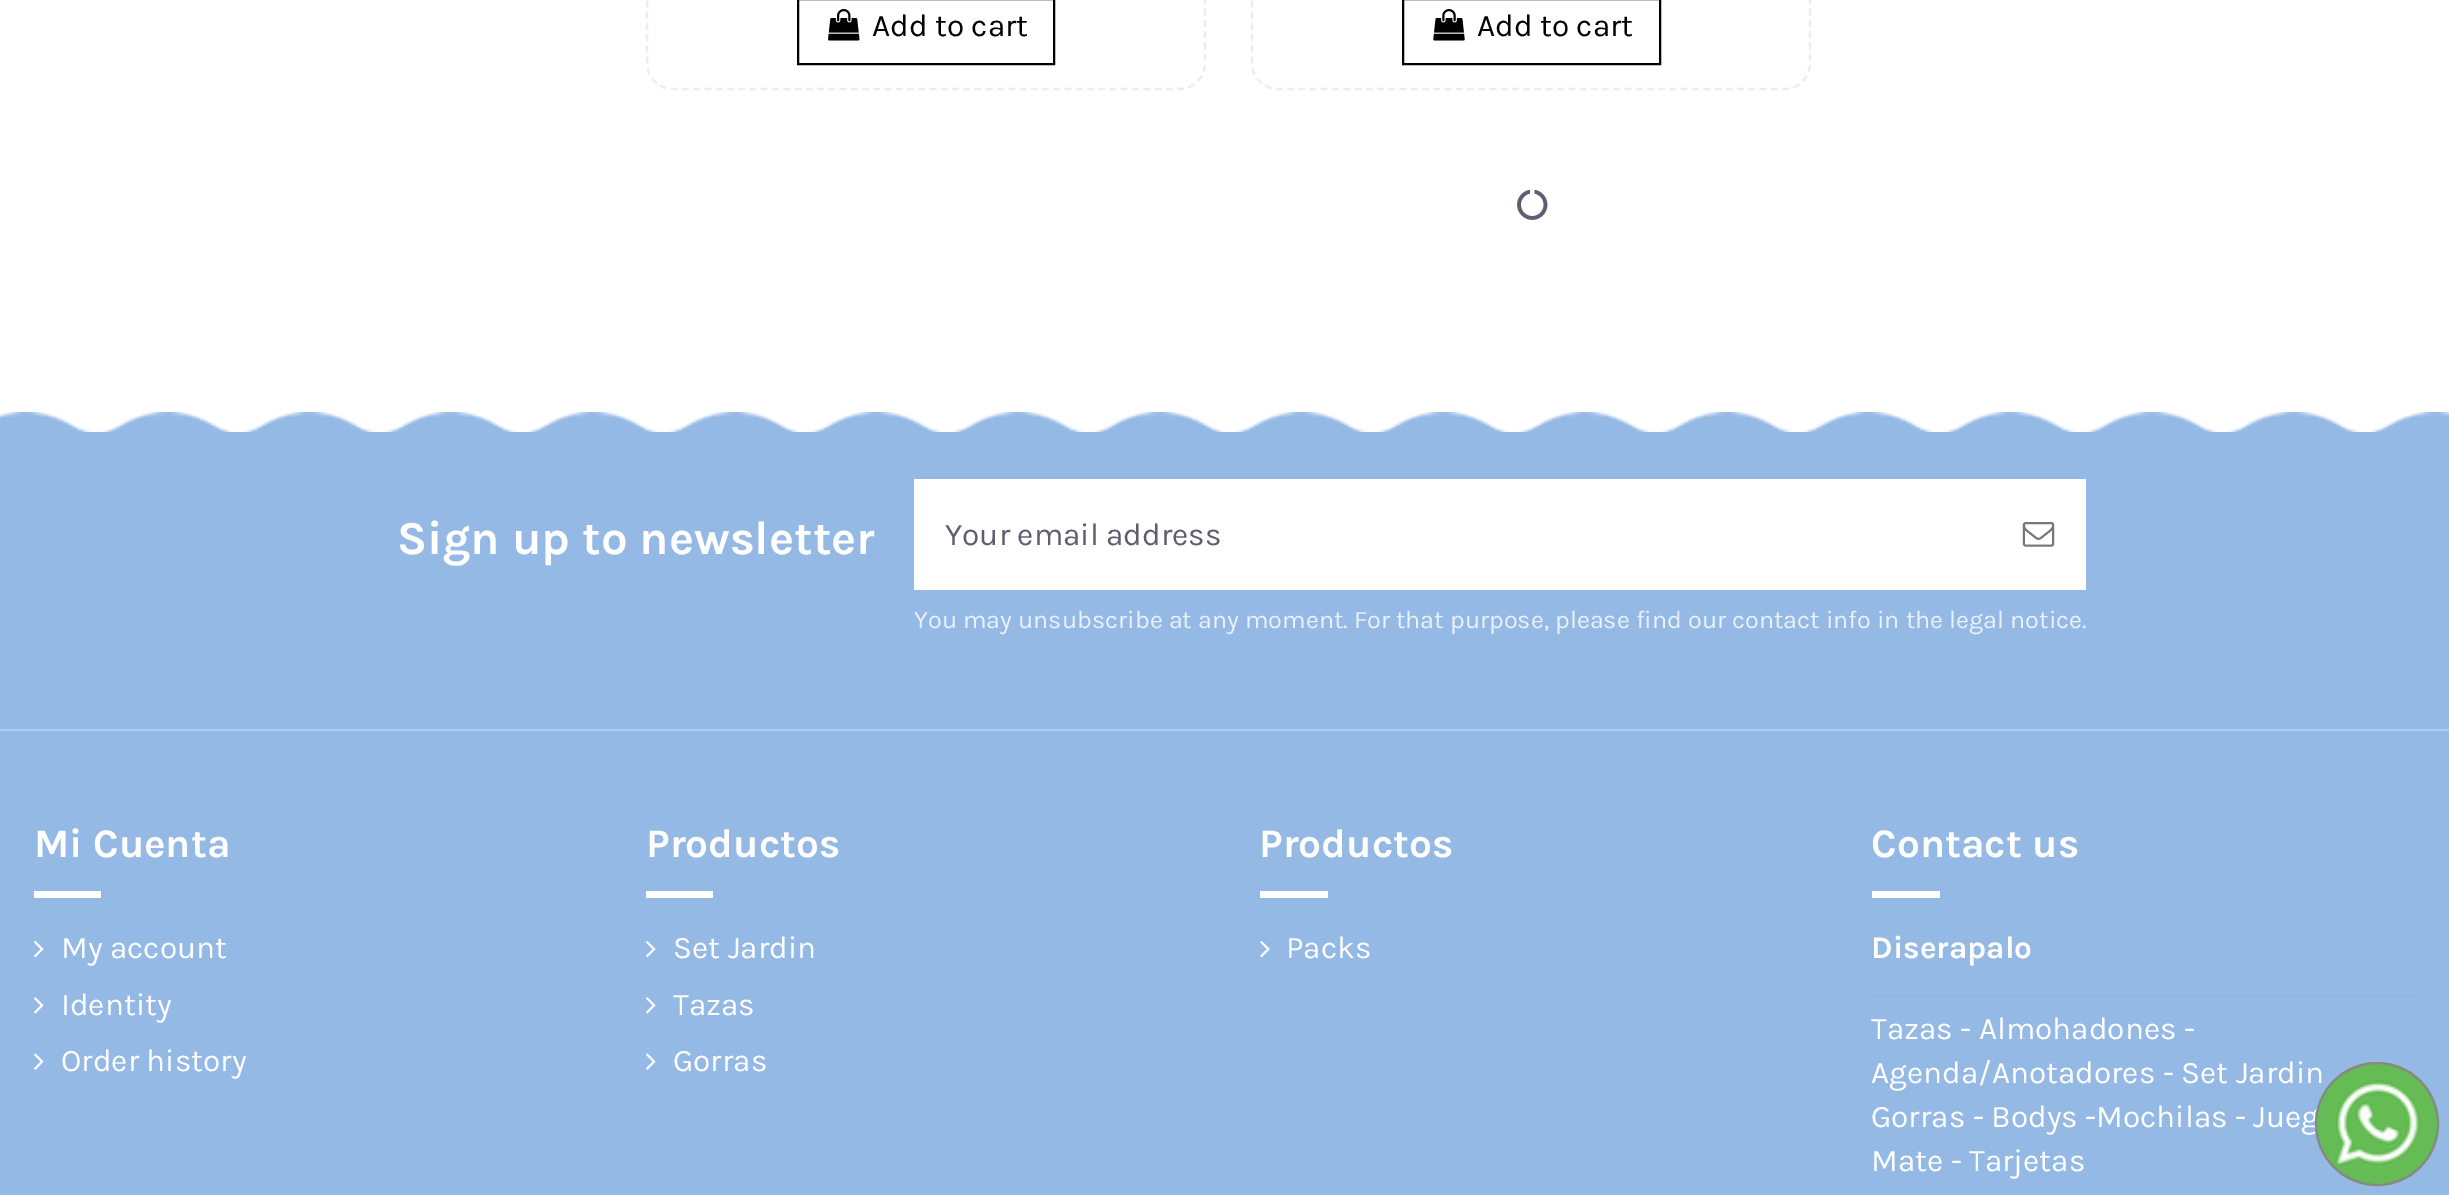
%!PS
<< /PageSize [2449 1195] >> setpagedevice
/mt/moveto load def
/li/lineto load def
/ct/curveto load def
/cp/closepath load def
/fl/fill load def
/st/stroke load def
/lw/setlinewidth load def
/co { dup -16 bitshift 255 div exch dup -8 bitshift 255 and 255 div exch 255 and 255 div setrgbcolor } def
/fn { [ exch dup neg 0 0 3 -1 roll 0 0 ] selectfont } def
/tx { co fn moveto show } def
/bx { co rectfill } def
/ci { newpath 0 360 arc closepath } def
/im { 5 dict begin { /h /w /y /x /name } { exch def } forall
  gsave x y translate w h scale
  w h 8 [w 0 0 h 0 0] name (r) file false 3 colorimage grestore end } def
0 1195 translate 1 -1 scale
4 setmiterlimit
0 0 2449 1195 16#FFFFFF bx
16#EDEDED co
2.2 lw
[6.75 4.5] 0 setdash
673 -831.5 mt 1179 -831.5 li 1193.5 -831.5 1205 -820 1205 -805.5 ct 1205 63 li 1205 77.5 1193.5 89 1179 89 ct 673 89 li 658.5 89 647 77.5 647 63 ct 647 -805.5 li 647 -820 658.5 -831.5 673 -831.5 ct cp st
16#000000 co
2 lw
[] 0 setdash
798 -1 256 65 rectstroke
(media/1.raw) 828 9 32 32 im
16#EDEDED co
2.2 lw
[6.75 4.5] 0 setdash
1278 -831.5 mt 1784 -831.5 li 1798.5 -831.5 1810 -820 1810 -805.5 ct 1810 63 li 1810 77.5 1798.5 89 1784 89 ct 1278 89 li 1263.5 89 1252 77.5 1252 63 ct 1252 -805.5 li 1252 -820 1263.5 -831.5 1278 -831.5 ct cp st
16#000000 co
2 lw
[] 0 setdash
1403 -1 257 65 rectstroke
(media/2.raw) 1433 9 32 32 im
(media/3.raw) 1517 189 31 31 im
0 412 2449 783 16#95B9E5 bx
(media/4.raw) 0 412 2449 20 im
914 479 1172 111 16#FFFFFF bx
(media/5.raw) 2022 522 33 25 im
0 729 2449 2 16#B0CBEC bx
34 891 67 7 16#FFFFFF bx
(media/6.raw) 34 941 10 17 im
(media/7.raw) 34 997 10 17 im
(media/8.raw) 34 1053 10 17 im
646 891 67 7 16#FFFFFF bx
(media/6.raw) 646 941 10 17 im
(media/7.raw) 646 997 10 17 im
(media/8.raw) 646 1053 10 17 im
1260 891 68 7 16#FFFFFF bx
(media/9.raw) 1260 941 10 17 im
1872 891 68 7 16#FFFFFF bx
1872 995 545 2 16#98B3D4 bx
(Add to cart) 872 36 /Karla-Regular 31.5 16#000000 tx
(Add to cart) 1477 36 /Karla-Regular 31.5 16#000000 tx
(Sign up to newsletter) 397 554 /Karla-Bold 47.25 16#FFFFFF tx
(Your email address) 945 545 /Karla-Regular 31.5 16#605D70 tx
(You may unsubscribe at any moment. For that purpose, please find our contact info in the legal notice.) 914 628 /Karla-Regular 25.2 16#EAF1FA tx
(Mi Cuenta) 34 857 /Karla-Bold 40.5 16#FFFFFF tx
(My account) 61 958 /Karla-Regular 31.5 16#FFFFFF tx
(Identity) 61 1015 /Karla-Regular 31.5 16#FFFFFF tx
(Order history) 61 1071 /Karla-Regular 31.5 16#FFFFFF tx
(Productos) 646 857 /Karla-Bold 40.5 16#FFFFFF tx
(Set Jardin) 673 958 /Karla-Regular 31.5 16#FFFFFF tx
(Tazas) 673 1015 /Karla-Regular 31.5 16#FFFFFF tx
(Gorras) 673 1071 /Karla-Regular 31.5 16#FFFFFF tx
(Productos) 1259 857 /Karla-Bold 40.5 16#FFFFFF tx
(Packs) 1286 958 /Karla-Regular 31.5 16#FFFFFF tx
(Contact us) 1871 857 /Karla-Bold 40.5 16#FFFFFF tx
(Diserapalo) 1871 958 /Karla-Bold 31.5 16#FFFFFF tx
(Tazas - Almohadones -) 1871 1039 /Karla-Regular 31.5 16#FFFFFF tx
(Agenda/Anotadores - Set Jardin) 1871 1083 /Karla-Regular 31.5 16#FFFFFF tx
(Gorras - Bodys -Mochilas - Jueg) 1871 1127 /Karla-Regular 31.5 16#FFFFFF tx
(Mate - Tarjetas) 1871 1171 /Karla-Regular 31.5 16#FFFFFF tx
16#65BC54 co
2377 1124 62 ci fl
(media/10.raw) 2326 1073 103 102 im
16#888888 co
2377 1124 61 ci st
showpage
